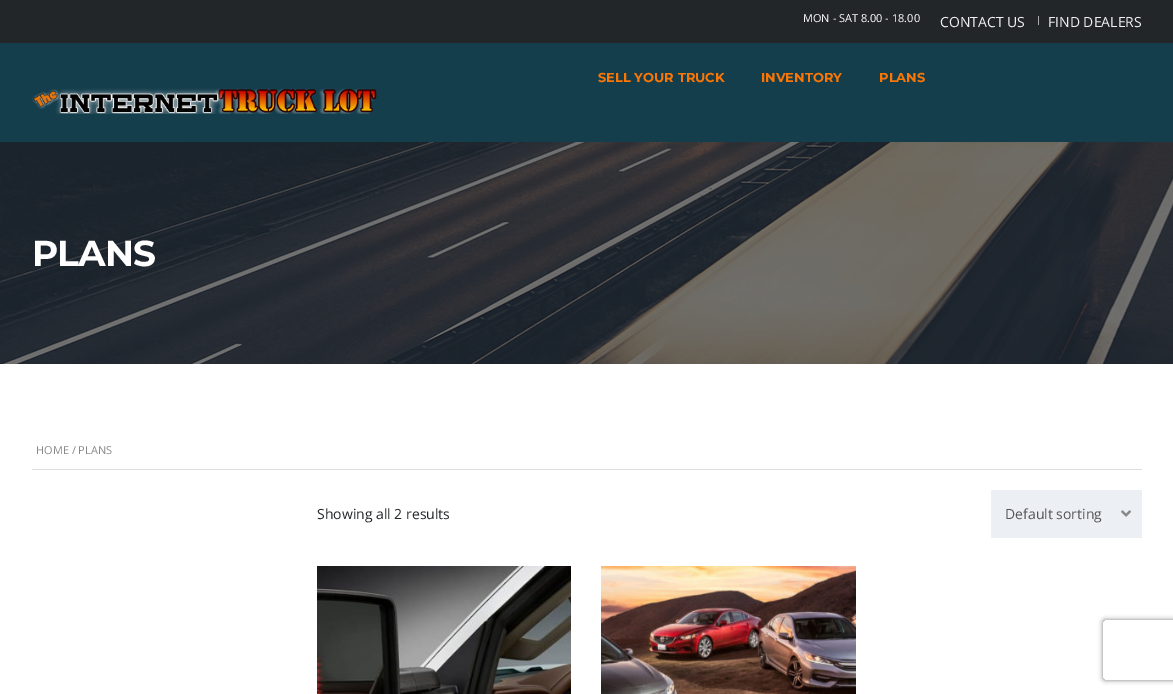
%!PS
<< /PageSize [1173 694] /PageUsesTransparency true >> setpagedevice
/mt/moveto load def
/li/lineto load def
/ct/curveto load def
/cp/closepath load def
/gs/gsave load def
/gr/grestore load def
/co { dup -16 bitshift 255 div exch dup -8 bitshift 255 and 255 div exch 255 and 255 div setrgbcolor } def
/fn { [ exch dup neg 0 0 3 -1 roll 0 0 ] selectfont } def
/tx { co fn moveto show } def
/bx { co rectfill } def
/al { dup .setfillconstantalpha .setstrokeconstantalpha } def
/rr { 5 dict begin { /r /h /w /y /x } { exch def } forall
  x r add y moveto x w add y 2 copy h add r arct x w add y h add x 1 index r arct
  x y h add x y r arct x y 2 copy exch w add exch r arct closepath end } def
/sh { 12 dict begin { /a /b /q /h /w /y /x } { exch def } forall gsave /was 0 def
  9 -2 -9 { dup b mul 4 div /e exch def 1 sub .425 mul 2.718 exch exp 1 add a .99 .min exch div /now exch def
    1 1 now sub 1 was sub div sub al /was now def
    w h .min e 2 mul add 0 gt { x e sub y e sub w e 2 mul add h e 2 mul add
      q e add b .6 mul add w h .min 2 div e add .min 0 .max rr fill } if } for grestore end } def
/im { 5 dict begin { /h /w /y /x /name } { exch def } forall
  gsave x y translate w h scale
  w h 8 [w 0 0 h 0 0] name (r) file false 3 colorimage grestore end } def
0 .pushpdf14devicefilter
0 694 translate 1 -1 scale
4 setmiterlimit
0 0 1173 694 16#FFFFFF bx
0 0 1173 43 16#232628 bx
1038 16 1 9 16#AAAAAA bx
0 43 1173 99 16#153E4D bx
(media/1.raw) 32 88 345 26 im
(media/2.raw) 0 142 1173 222 im
32 469 1110 1 16#DDDDDD bx
991 490 151 48 16#ECEFF3 bx
(media/3.raw) 1121 510 10 7 im
(media/4.raw) 317 566 254 128 im
(media/5.raw) 601 566 255 128 im
gs
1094 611 mt 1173 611 li 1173 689 li 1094 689 li cp 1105 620 mt 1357 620 li 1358 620 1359 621 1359 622 ct 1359 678 li 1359 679 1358 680 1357 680 ct 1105 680 li 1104 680 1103 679 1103 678 ct 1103 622 li 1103 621 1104 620 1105 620 ct cp eoclip newpath
16#808080 co
1103 620 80 60 2 2.5 1 sh
gr
(MON - SAT 8.00 - 18.00) 803 22 /OpenSans-Regular 11 16#FFFFFF tx
(CONTACT US) 940 27 /OpenSans-Regular 14 16#F1F1F1 tx
(FIND DEALERS) 1048 27 /OpenSans-Regular 14 16#F1F1F1 tx
(SELL YOUR TRUCK) 598 82 /Montserrat-Bold 13 16#FB7603 tx
(INVENTORY) 761 82 /Montserrat-Bold 13 16#FB7603 tx
(PLANS) 879 82 /Montserrat-Bold 13 16#FB7603 tx
/Montserrat-Bold 36 fn
16#FFFFFF co
32 266 mt -1 0 (PLANS) ashow
(HOME / PLANS) 36 454 /OpenSans-Regular 11 16#888888 tx
(Showing all 2 results) 317 519 /OpenSans-Regular 14 16#232628 tx
(Default sorting) 1005 519 /OpenSans-Regular 14 16#555555 tx
.poppdf14devicefilter showpage
